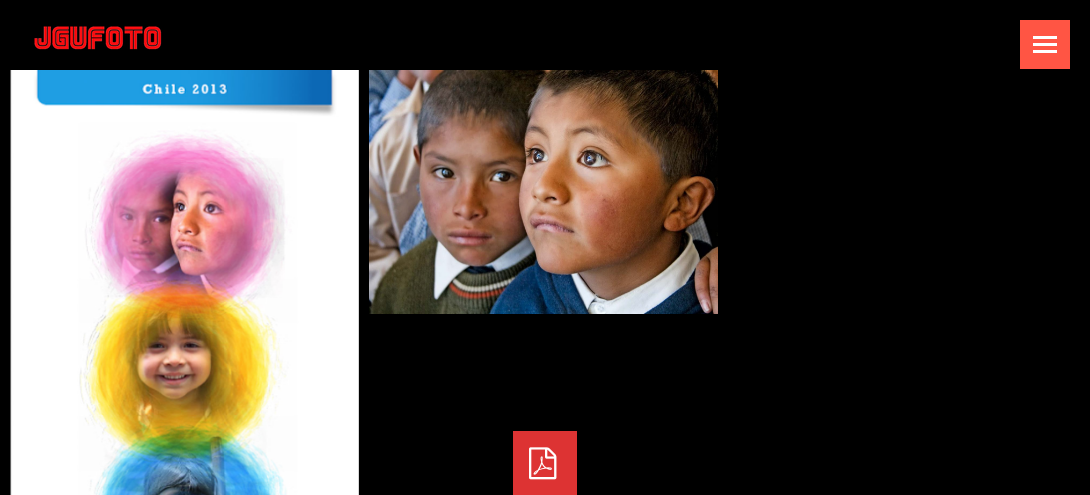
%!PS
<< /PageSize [1090 495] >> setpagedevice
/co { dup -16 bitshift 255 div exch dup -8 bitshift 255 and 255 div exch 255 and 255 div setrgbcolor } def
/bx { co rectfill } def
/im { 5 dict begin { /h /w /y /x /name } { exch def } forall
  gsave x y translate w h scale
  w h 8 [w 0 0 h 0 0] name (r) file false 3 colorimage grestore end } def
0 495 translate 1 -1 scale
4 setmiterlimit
0 0 1090 495 16#000000 bx
(media/1.raw) 34 26 128 24 im
1020 20 50 49 16#FF5544 bx
1033 36 24 3 16#FFFFFF bx
1033 43 24 3 16#FFFFFF bx
1033 50 24 3 16#FFFFFF bx
(media/2.raw) 10 70 349 425 im
(media/3.raw) 369 70 349 244 im
513 431 64 64 16#DD3333 bx
(media/4.raw) 529 447 28 33 im
showpage
